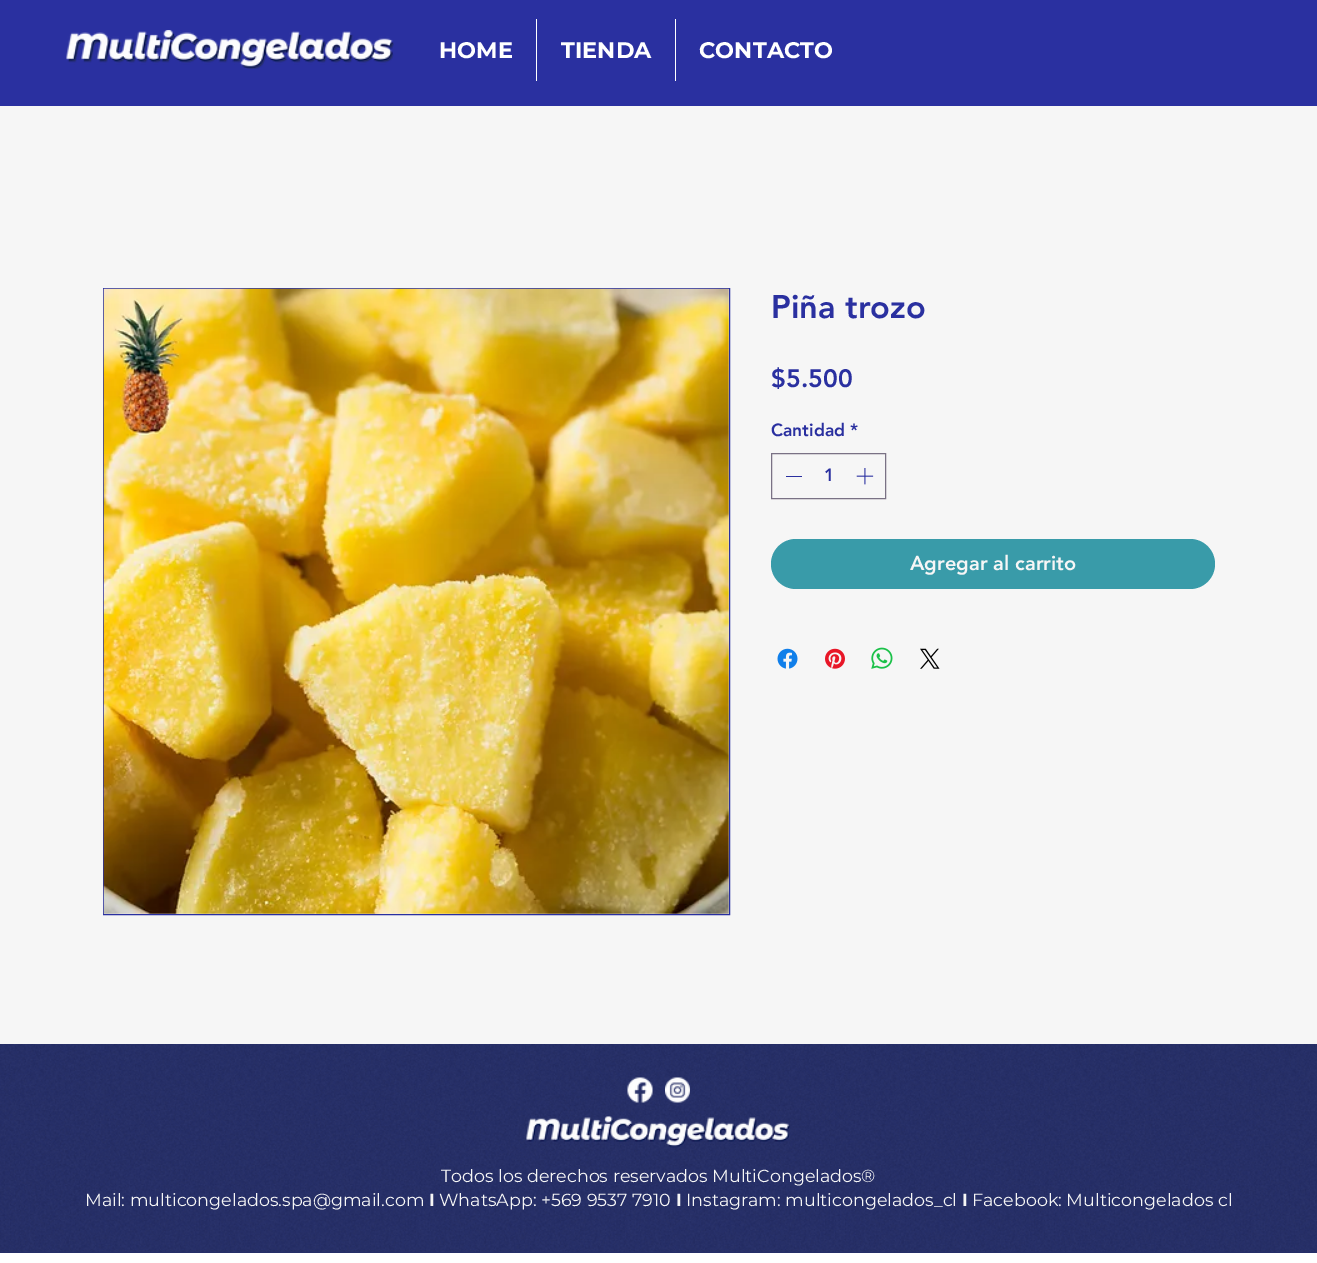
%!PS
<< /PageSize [1317 1263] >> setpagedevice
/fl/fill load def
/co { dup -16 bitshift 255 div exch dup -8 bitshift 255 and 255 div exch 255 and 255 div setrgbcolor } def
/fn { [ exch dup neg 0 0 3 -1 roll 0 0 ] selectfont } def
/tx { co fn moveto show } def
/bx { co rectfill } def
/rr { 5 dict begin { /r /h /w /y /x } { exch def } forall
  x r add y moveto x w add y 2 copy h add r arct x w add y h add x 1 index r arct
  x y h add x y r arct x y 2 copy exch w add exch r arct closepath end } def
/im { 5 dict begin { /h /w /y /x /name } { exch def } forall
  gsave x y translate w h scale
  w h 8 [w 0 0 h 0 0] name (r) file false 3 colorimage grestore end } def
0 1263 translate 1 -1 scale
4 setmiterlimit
0 0 1317 1263 16#FFFFFF bx
0 0 1317 106 16#2A30A0 bx
(media/1.raw) 66 30 328 39 im
536 19 1 62 16#FFFFFF bx
675 19 1 62 16#FFFFFF bx
0 106 1317 938 16#F6F6F6 bx
16#2A30A0 co
103.5 288.5 626 626 rectstroke
(media/2.raw) 103 288 626 626 im
16#7A7285 co
771.5 453.5 114 45 rectstroke
786 476 16 1 16#2A30A0 bx
(media/3.raw) 856 468 18 17 im
16#399BA9 co
771 539 444 50 25 rr fl
(media/4.raw) 777 648 21 21 im
(media/5.raw) 825 648 20 21 im
(media/6.raw) 871 647 22 22 im
(media/7.raw) 920 648 20 21 im
0 1044 1317 209 16#252E68 bx
(media/8.raw) 0 1044 1317 208 im
(media/9.raw) 627 1077 26 26 im
(media/10.raw) 665 1077 25 26 im
(media/11.raw) 526 1116 264 32 im
(HOME) 439 58 /Montserrat-Bold 22.5 16#FFFFFF tx
(TIENDA) 561 58 /Montserrat-Bold 22.5 16#FFFFFF tx
(CONTACTO) 699 58 /Montserrat-Bold 22.5 16#FFFFFF tx
(Piña trozo) 771 318 /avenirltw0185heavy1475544-Black 32.5 16#2A30A0 tx
($5.500) 771 387 /avenirltw0185heavy1475544-Black 25 16#2A30A0 tx
(Cantidad *) 771 436 /avenirltw0185heavy1475544-Black 17.5 16#2A30A0 tx
(1) 824 481 /avenirltw0185heavy1475544-Black 17.5 16#2A30A0 tx
(Agregar al carrito) 910 570 /avenirltw0185heavy1475544-Black 20 16#F6F6F6 tx
(Todos los derechos reservados MultiCongelados®) 441 1182 /Montserrat-Regular 17.5 16#F6F6F6 tx
(Mail: multicongelados.spa@gmail.com) 85 1206 /Montserrat-Regular 17.5 16#F6F6F6 tx
(I) 429 1206 /Montserrat-Bold 17.5 16#F6F6F6 tx
(WhatsApp: +569 9537 7910) 439 1206 /Montserrat-Regular 17.5 16#F6F6F6 tx
(I) 676 1206 /Montserrat-Bold 17.5 16#F6F6F6 tx
(Instagram: multicongelados_cl) 686 1206 /Montserrat-Regular 17.5 16#F6F6F6 tx
(I) 962 1206 /Montserrat-Bold 17.5 16#F6F6F6 tx
(Facebook: Multicongelados cl) 972 1206 /Montserrat-Regular 17.5 16#F6F6F6 tx
showpage
